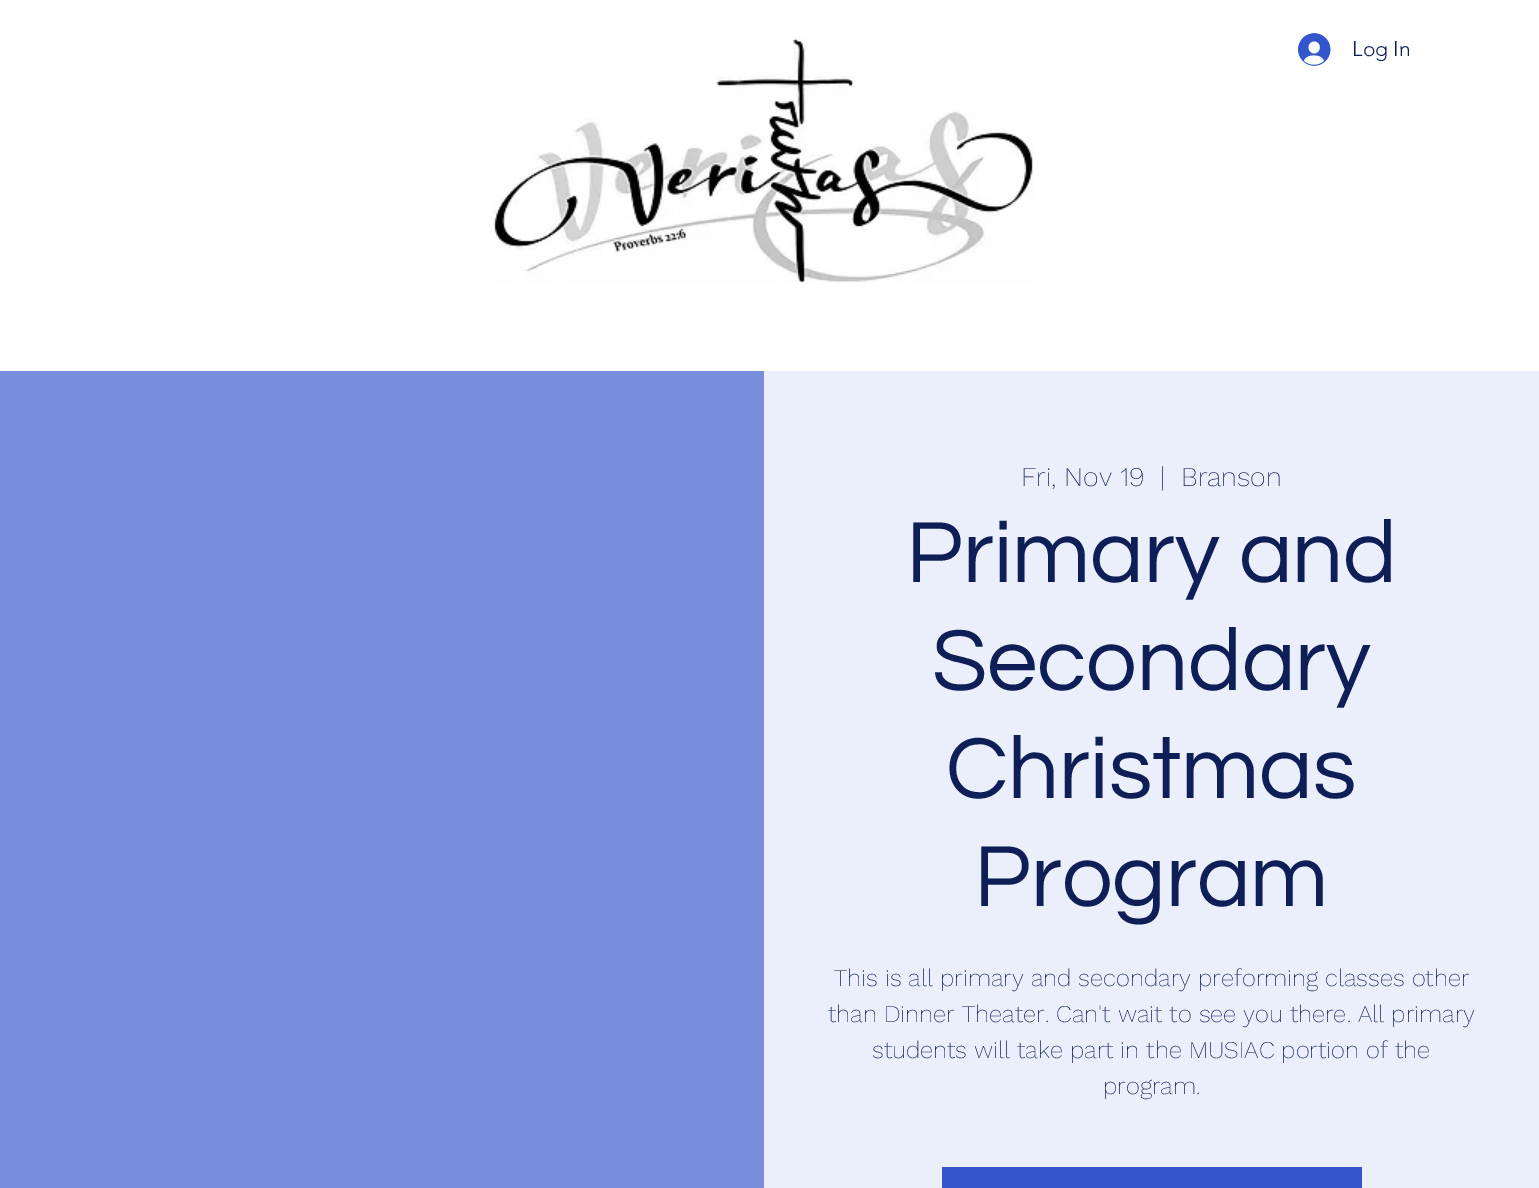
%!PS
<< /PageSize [1539 1188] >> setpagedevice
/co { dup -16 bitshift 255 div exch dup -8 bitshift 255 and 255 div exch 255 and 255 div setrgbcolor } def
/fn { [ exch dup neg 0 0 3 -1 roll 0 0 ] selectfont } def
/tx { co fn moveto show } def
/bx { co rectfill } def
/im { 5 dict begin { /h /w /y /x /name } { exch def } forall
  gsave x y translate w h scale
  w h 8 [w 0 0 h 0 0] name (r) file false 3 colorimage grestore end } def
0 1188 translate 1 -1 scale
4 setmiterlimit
0 0 1539 1188 16#FFFFFF bx
(media/1.raw) 493 37 541 247 im
(media/2.raw) 1298 33 33 33 im
0 371 764 817 16#778EDD bx
764 371 775 817 16#EBEFFB bx
942 1167 420 21 16#3356CC bx
(Log In) 1352 56 /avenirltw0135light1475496-Light 21 16#0E1F58 tx
(Fri, Nov 19) 1021 486 /WorkSans-ExtraLight 27 16#0E1F58 tx
(|) 1160 486 /WorkSans-ExtraLight 27 16#0E1F58 tx
(Branson) 1181 486 /WorkSans-ExtraLight 27 16#0E1F58 tx
(Primary and) 906 582 /Questrial-Regular 90 16#0E1F58 tx
(Secondary) 932 690 /Questrial-Regular 90 16#0E1F58 tx
(Christmas) 946 798 /Questrial-Regular 90 16#0E1F58 tx
(Program) 974 906 /Questrial-Regular 90 16#0E1F58 tx
(This is all primary and secondary preforming classes other) 834 986 /WorkSans-ExtraLight 24 16#0E1F58 tx
(than Dinner Theater. Can't wait to see you there. All primary) 828 1022 /WorkSans-ExtraLight 24 16#0E1F58 tx
(students will take part in the MUSIAC portion of the) 872 1058 /WorkSans-ExtraLight 24 16#0E1F58 tx
(program.) 1103 1094 /WorkSans-ExtraLight 24 16#0E1F58 tx
showpage
